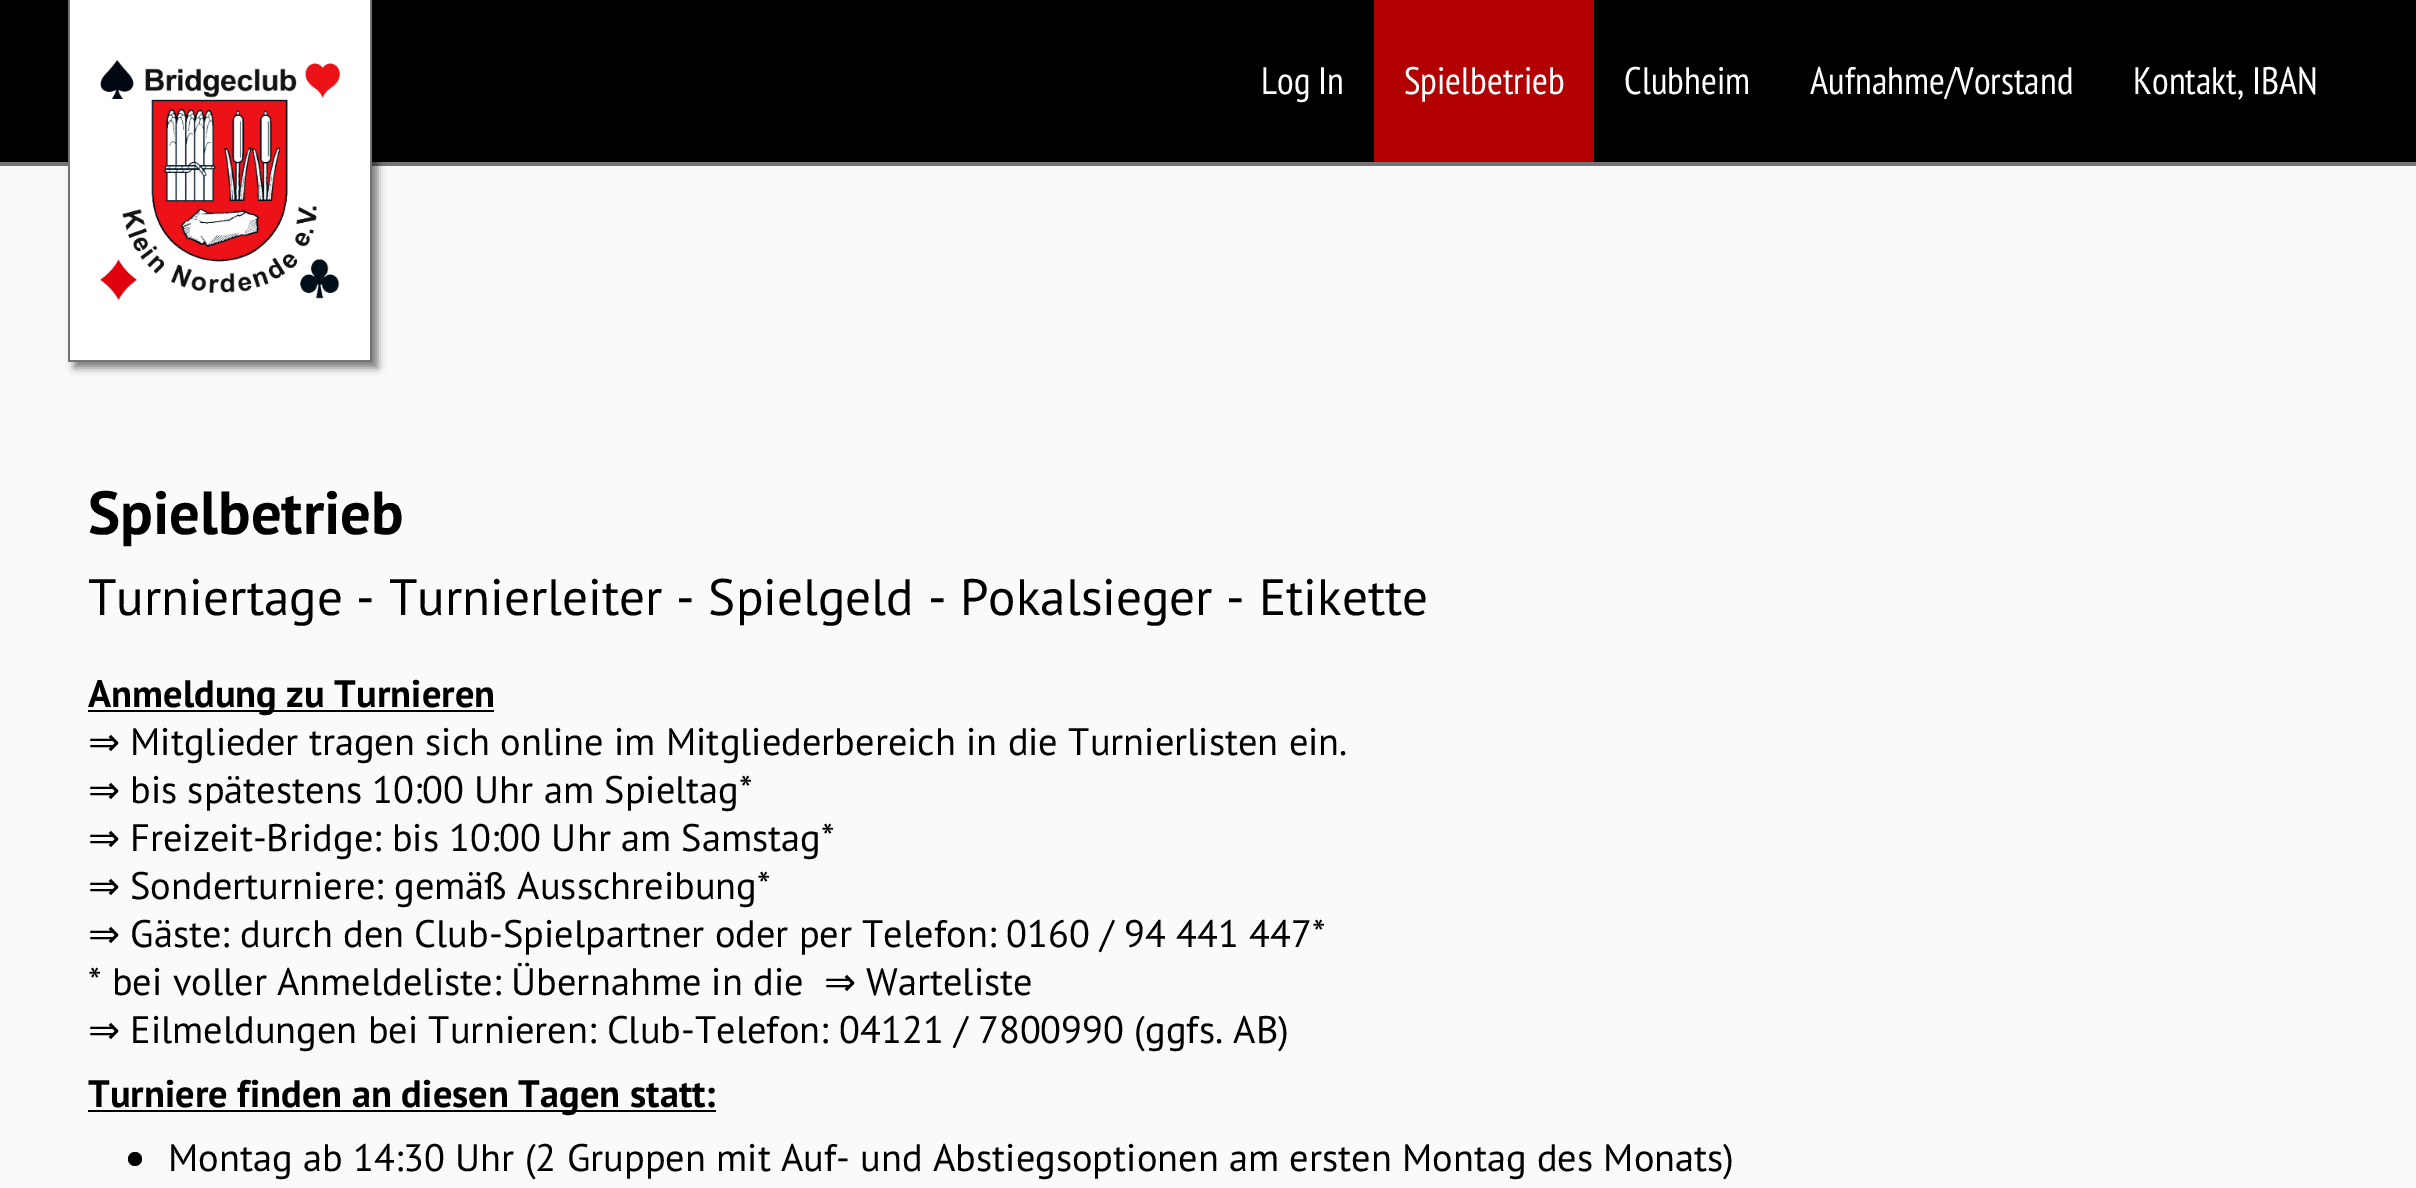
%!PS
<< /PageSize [2416 1188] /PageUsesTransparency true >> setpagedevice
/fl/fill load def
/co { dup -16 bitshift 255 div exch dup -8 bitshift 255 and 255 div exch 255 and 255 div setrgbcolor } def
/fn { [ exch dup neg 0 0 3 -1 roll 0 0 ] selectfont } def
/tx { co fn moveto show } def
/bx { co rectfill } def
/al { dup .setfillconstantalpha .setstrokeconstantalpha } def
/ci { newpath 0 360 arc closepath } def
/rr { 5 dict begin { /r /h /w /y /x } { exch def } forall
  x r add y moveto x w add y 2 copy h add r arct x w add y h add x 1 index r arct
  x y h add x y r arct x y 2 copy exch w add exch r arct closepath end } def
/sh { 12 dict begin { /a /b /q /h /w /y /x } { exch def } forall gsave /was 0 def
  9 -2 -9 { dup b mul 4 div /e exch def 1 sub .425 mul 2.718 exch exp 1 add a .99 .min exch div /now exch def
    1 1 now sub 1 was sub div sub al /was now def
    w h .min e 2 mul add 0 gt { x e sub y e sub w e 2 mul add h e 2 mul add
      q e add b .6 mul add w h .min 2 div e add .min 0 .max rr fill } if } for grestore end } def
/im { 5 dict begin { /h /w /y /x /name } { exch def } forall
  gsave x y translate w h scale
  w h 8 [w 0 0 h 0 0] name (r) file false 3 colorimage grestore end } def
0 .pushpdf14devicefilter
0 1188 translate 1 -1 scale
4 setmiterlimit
0 0 2416 1188 16#FAFAFA bx
0 0 2416 162 16#000000 bx
0 162 2416 4 16#747474 bx
16#000000 co
74 6 304 362 0 4 .5 sh
70 0 300 360 16#FFFFFF bx
370 0 2 362 16#747474 bx
68 360 304 2 16#747474 bx
68 0 2 362 16#747474 bx
(media/1.raw) 100 60 240 240 im
1374 0 220 162 16#B20000 bx
88 710 406 2 16#000000 bx
88 1110 628 2 16#000000 bx
135 1159 7 ci fl
(Log In) 1261 94 /PTSansNarrow-Regular 38.4 16#FFFFFF tx
(Spielbetrieb) 1404 94 /PTSansNarrow-Regular 38.4 16#FFFFFF tx
(Clubheim) 1624 94 /PTSansNarrow-Regular 38.4 16#FFFFFF tx
(Aufnahme/Vorstand) 1810 94 /PTSansNarrow-Regular 38.4 16#FFFFFF tx
(Kontakt, IBAN) 2133 94 /PTSansNarrow-Regular 38.4 16#FFFFFF tx
(Spielbetrieb) 88 534 /PTSans-Bold 60.75 16#000000 tx
(Turniertage - Turnierleiter - Spielgeld - Pokalsieger - Etikette) 88 615 /PTSans-Regular 51.2 16#000000 tx
(Anmeldung zu Turnieren) 88 707 /PTSans-Bold 38.4 16#000000 tx
(⇒) 88 755 /DejaVuSans-Regular 38.4 16#000000 tx
(Mitglieder tragen sich online im Mitgliederbereich in die Turnierlisten ein.) 130 755 /PTSans-Regular 38.4 16#000000 tx
(⇒) 88 803 /DejaVuSans-Regular 38.4 16#000000 tx
(bis spätestens 10:00 Uhr am Spieltag*) 130 803 /PTSans-Regular 38.4 16#000000 tx
(⇒) 88 851 /DejaVuSans-Regular 38.4 16#000000 tx
(Freizeit-Bridge: bis 10:00 Uhr am Samstag*) 130 851 /PTSans-Regular 38.4 16#000000 tx
(⇒) 88 899 /DejaVuSans-Regular 38.4 16#000000 tx
(Sonderturniere: gemäß Ausschreibung*) 130 899 /PTSans-Regular 38.4 16#000000 tx
(⇒) 88 947 /DejaVuSans-Regular 38.4 16#000000 tx
(Gäste: durch den Club-Spielpartner oder per Telefon: 0160 / 94 441 447*) 130 947 /PTSans-Regular 38.4 16#000000 tx
(* bei voller Anmeldeliste: Übernahme in die) 88 995 /PTSans-Regular 38.4 16#000000 tx
(⇒) 824 995 /DejaVuSans-Regular 38.4 16#000000 tx
(Warteliste) 866 995 /PTSans-Regular 38.4 16#000000 tx
(⇒) 88 1043 /DejaVuSans-Regular 38.4 16#000000 tx
(Eilmeldungen bei Turnieren: Club-Telefon: 04121 / 7800990 \(ggfs. AB\)) 130 1043 /PTSans-Regular 38.4 16#000000 tx
(Turniere finden an diesen Tagen statt:) 88 1107 /PTSans-Bold 38.4 16#000000 tx
(Montag ab 14:30 Uhr \(2 Gruppen mit Auf- und Abstiegsoptionen am ersten Montag des Monats\)) 168 1171 /PTSans-Regular 38.4 16#000000 tx
.poppdf14devicefilter showpage
